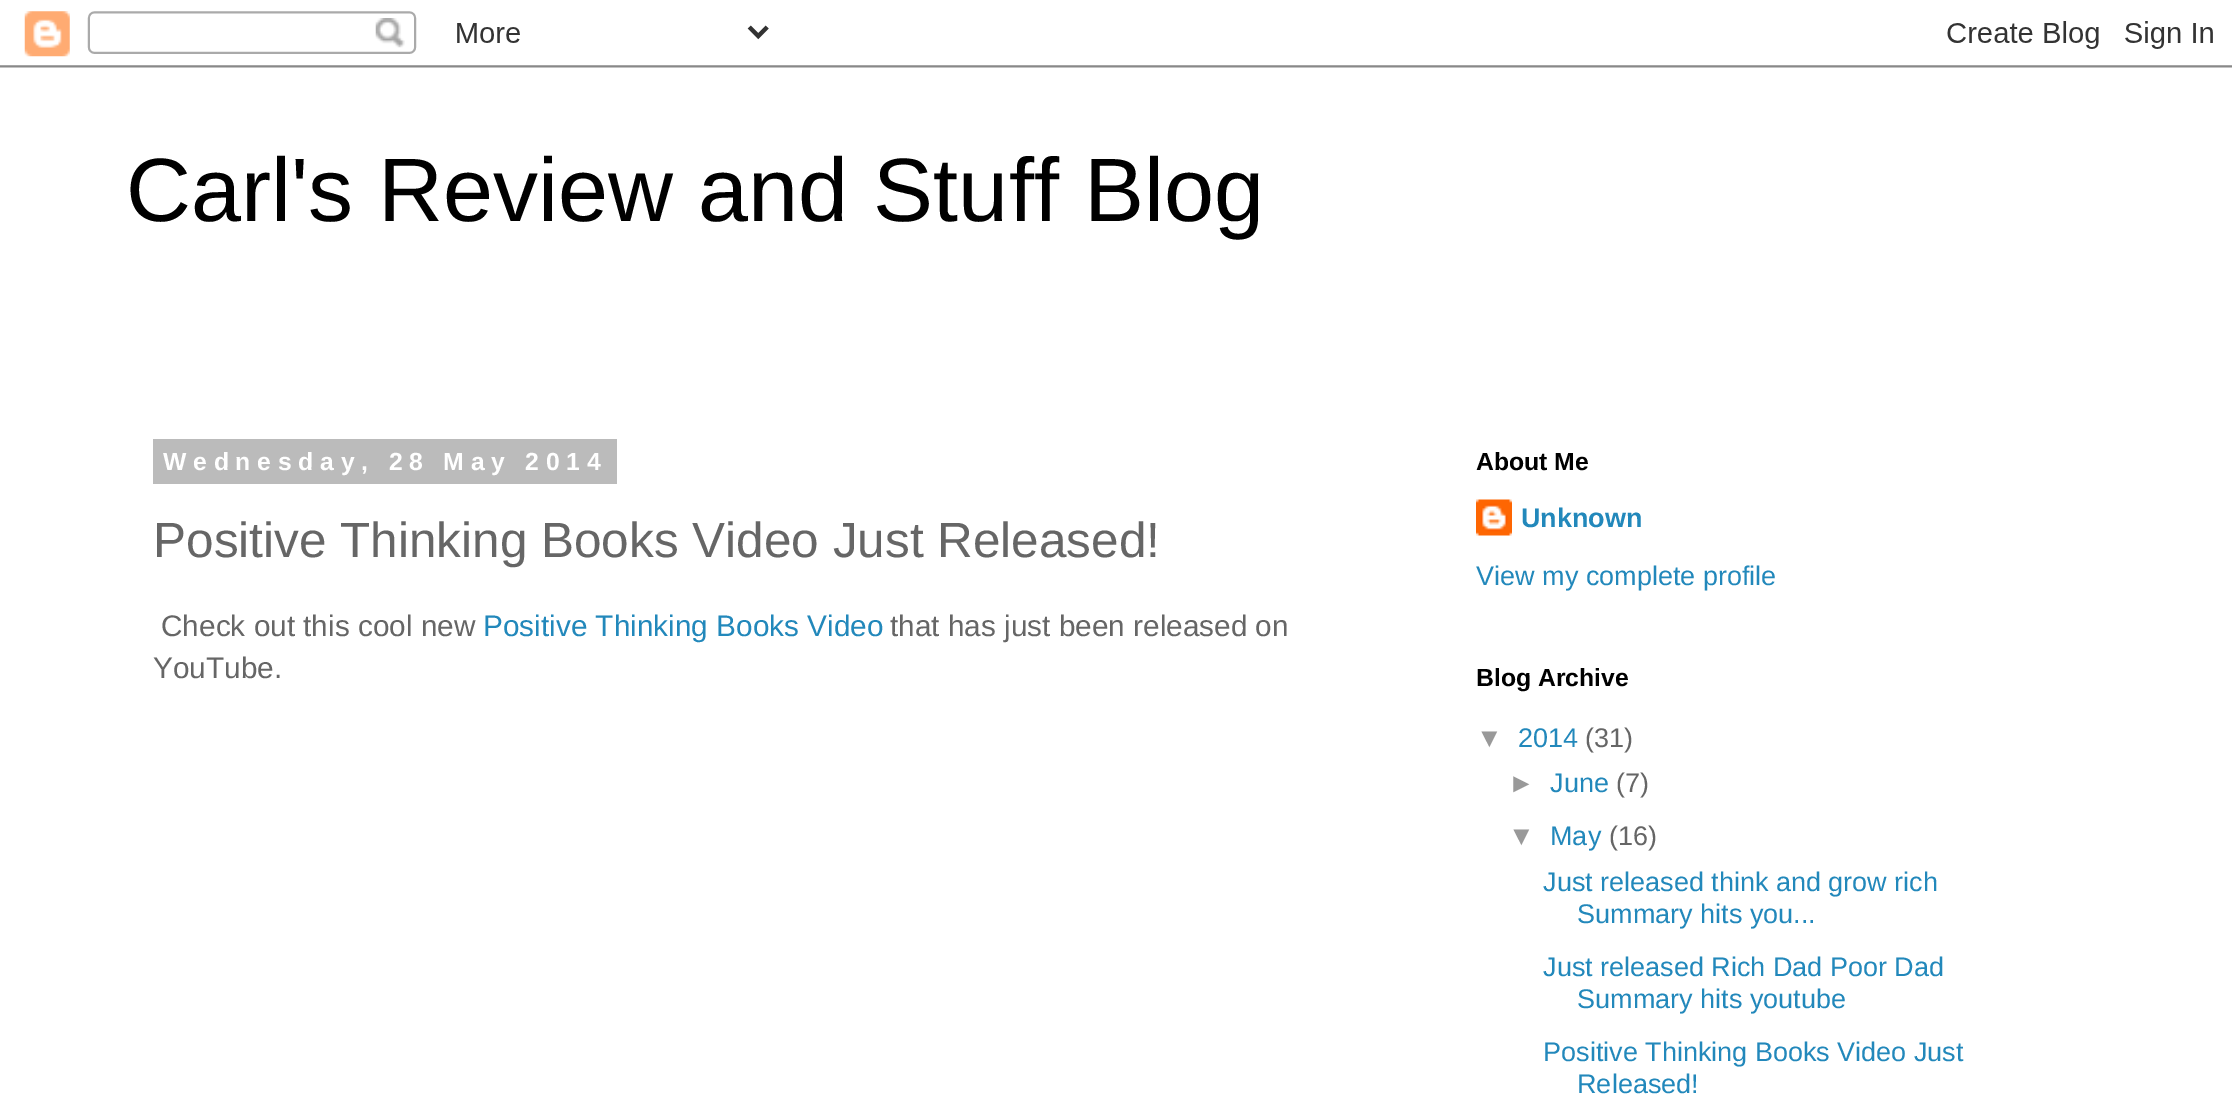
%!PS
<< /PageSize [2232 1098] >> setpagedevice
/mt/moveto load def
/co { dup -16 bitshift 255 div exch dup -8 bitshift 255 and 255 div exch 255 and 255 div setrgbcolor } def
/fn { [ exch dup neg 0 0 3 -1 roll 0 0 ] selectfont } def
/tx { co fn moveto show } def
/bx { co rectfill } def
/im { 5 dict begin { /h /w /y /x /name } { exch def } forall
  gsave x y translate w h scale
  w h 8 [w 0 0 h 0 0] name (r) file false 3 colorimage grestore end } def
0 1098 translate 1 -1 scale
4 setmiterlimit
0 0 2232 1098 16#FFFFFF bx
(media/1.raw) 0 11 2232 57 im
153 439 464 45 16#BBBBBB bx
(media/2.raw) 1476 499 36 37 im
(Carl's Review and Stuff Blog) 126 221 /LiberationSans-Regular 90 16#000000 tx
/LiberationSans-Bold 24.75 fn
16#FFFFFF co
163 470 mt 6.75 0 (Wednesday, 28 May 2014) ashow
(Positive Thinking Books Video Just Released!) 153 557 /LiberationSans-Regular 49.5 16#666666 tx
(Check out this cool new) 161 636 /LiberationSans-Regular 29.75 16#666666 tx
(Positive Thinking Books Video) 483 636 /LiberationSans-Regular 29.75 16#2288BB tx
(that has just been released on) 890 636 /LiberationSans-Regular 29.75 16#666666 tx
(YouTube.) 153 678 /LiberationSans-Regular 29.75 16#666666 tx
(About Me) 1476 470 /LiberationSans-Bold 24.75 16#000000 tx
(Unknown) 1521 527 /LiberationSans-Bold 27 16#2288BB tx
(View my complete profile) 1476 585 /LiberationSans-Regular 27 16#2288BB tx
(Blog Archive) 1476 686 /LiberationSans-Bold 24.75 16#000000 tx
(▼) 1476 747 /LiberationSans-Regular 27 16#999999 tx
(2014) 1518 747 /LiberationSans-Regular 27 16#2288BB tx
(\(31\)) 1585 747 /LiberationSans-Regular 27 16#666666 tx
(►) 1508 792 /LiberationSans-Regular 27 16#999999 tx
(June) 1550 792 /LiberationSans-Regular 27 16#2288BB tx
(\(7\)) 1616 792 /LiberationSans-Regular 27 16#666666 tx
(▼) 1508 845 /LiberationSans-Regular 27 16#999999 tx
(May) 1550 845 /LiberationSans-Regular 27 16#2288BB tx
(\(16\)) 1609 845 /LiberationSans-Regular 27 16#666666 tx
(Just released think and grow rich) 1543 891 /LiberationSans-Regular 27 16#2288BB tx
(Summary hits you...) 1577 923 /LiberationSans-Regular 27 16#2288BB tx
(Just released Rich Dad Poor Dad) 1543 976 /LiberationSans-Regular 27 16#2288BB tx
(Summary hits youtube) 1577 1008 /LiberationSans-Regular 27 16#2288BB tx
(Positive Thinking Books Video Just) 1543 1061 /LiberationSans-Regular 27 16#2288BB tx
(Released!) 1577 1093 /LiberationSans-Regular 27 16#2288BB tx
showpage
